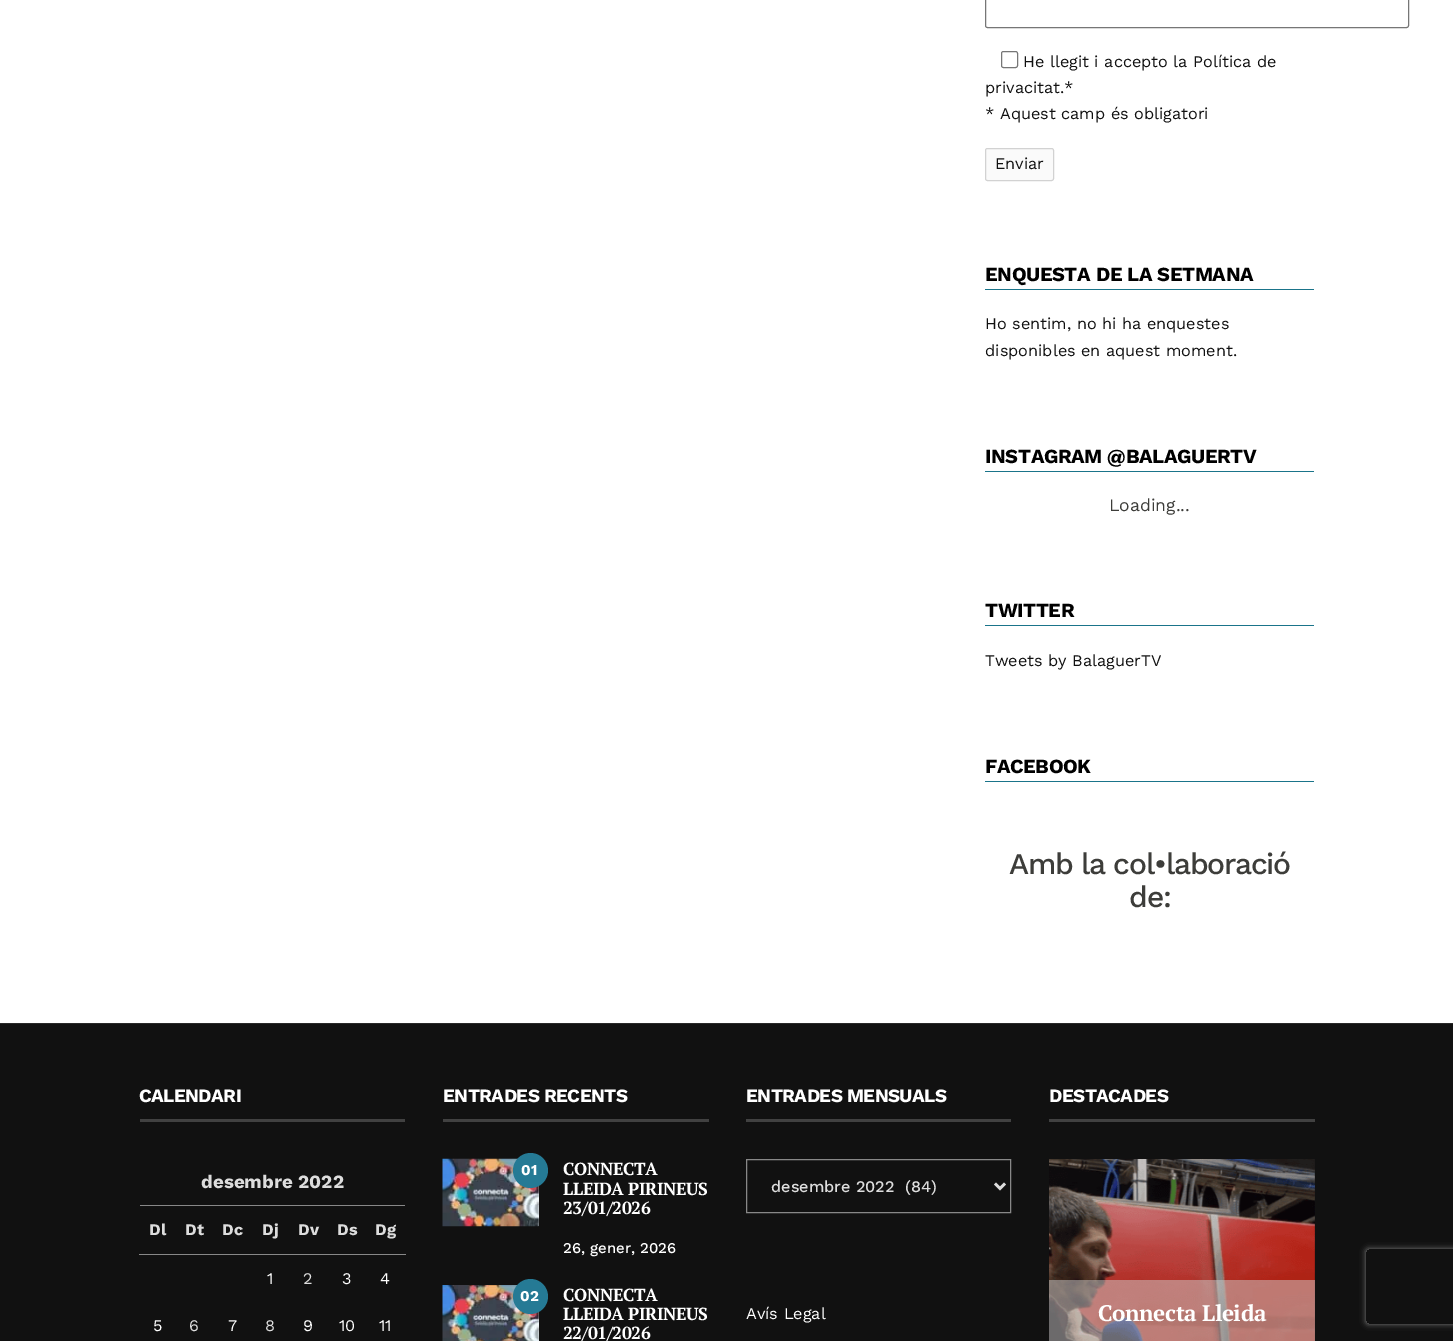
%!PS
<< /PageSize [1453 1341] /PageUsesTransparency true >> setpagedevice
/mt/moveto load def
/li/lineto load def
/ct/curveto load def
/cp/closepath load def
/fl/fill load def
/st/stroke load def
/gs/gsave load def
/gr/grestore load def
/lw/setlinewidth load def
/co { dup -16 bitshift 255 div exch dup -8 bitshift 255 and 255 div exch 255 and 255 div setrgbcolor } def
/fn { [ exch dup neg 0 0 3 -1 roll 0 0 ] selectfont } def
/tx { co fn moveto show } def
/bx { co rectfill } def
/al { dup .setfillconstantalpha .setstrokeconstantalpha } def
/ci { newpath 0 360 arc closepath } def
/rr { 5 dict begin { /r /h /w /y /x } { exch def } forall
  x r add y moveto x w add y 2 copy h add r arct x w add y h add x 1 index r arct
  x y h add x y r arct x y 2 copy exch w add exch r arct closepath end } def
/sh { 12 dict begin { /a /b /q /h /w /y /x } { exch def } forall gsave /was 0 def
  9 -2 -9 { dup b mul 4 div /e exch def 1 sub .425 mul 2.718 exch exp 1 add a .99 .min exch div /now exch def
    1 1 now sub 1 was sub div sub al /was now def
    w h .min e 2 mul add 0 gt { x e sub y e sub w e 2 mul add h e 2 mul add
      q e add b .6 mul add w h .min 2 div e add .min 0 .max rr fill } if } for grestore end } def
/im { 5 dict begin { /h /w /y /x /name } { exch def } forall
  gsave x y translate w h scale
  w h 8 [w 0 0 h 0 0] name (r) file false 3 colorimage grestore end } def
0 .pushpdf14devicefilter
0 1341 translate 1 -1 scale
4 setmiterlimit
0 0 1453 1341 16#FFFFFF bx
16#767676 co
985.5 -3.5 423 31 2 rr st
1001.5 51.5 16 16 2 rr st
16#FAFAFA co
985.5 148.5 68 32 2 rr gs fl gr
16#D2D2D2 co
st
985 289 329 1 16#1A748A bx
985 471 329 1 16#1A748A bx
985 625 329 1 16#1A748A bx
985 781 329 1 16#1A748A bx
0 1024 1453 317 16#111111 bx
0 1023 1453 1 16#292929 bx
140 1119 265 3 16#414141 bx
140 1205 265 1 16#888888 bx
139 1254 267 1 16#888888 bx
443 1119 266 3 16#414141 bx
(media/1.raw) 442 1158 97 69 im
16#257A95 co
530.5 1170.5 17.5 ci fl
(media/2.raw) 442 1285 97 56 im
530.5 1296.5 17.5 ci fl
746 1119 265 3 16#414141 bx
16#888888 co
746.5 1159.5 264 53 rectstroke
16#DDDDDD co
2.5 lw
995 1183.5 mt 1000 1188.5 li 1005 1183.5 li st
1049 1119 266 3 16#414141 bx
(media/3.raw) 1049 1159 266 182 im
0.5 al
1049 1280 266 61 16#CFCFCF bx
gs
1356 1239 mt 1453 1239 li 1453 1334 li 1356 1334 li cp 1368.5 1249 mt 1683.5 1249 li 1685 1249 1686 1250 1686 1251.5 ct 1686 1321.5 li 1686 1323 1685 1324 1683.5 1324 ct 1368.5 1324 li 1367 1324 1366 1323 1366 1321.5 ct 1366 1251.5 li 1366 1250 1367 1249 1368.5 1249 ct cp eoclip newpath
1 al
16#808080 co
1366 1249 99 75 2.5 3 1 sh
gr
1 al
(He llegit i accepto la Política de) 1023 67 /WorkSans-Regular 16.25 16#111111 tx
(privacitat.*) 985 93 /WorkSans-Regular 16.25 16#111111 tx
(* Aquest camp és obligatori) 985 119 /WorkSans-Regular 16.25 16#111111 tx
(Enviar) 995 169 /WorkSans-Regular 16.25 16#111111 tx
/WorkSans-Bold 20 fn
16#000000 co
985 281 mt -.4 0 (ENQUESTA DE LA SETMANA) ashow
(Ho sentim, no hi ha enquestes) 985 329 /WorkSans-Regular 16.25 16#111111 tx
(disponibles en aquest moment.) 985 356 /WorkSans-Regular 16.25 16#111111 tx
/WorkSans-Bold 20 fn
16#000000 co
985 463 mt -.4 0 (INSTAGRAM @BALAGUERTV) ashow
(Loading...) 1109 511 /WorkSans-Regular 17.5 16#3D3D3A tx
/WorkSans-Bold 20 fn
16#000000 co
985 617 mt -.4 0 (TWITTER) ashow
(Tweets by BalaguerTV) 985 666 /WorkSans-Regular 16.25 16#111111 tx
/WorkSans-Bold 20 fn
16#000000 co
985 773 mt -.4 0 (FACEBOOK) ashow
/WorkSans-Medium 30 fn
16#3D3D3A co
1009 874 mt -1.25 0 (Amb la col•laboració) ashow
1129 907 mt -1.25 0 (de:) ashow
/WorkSans-Bold 18.75 fn
16#FFFFFF co
139 1102 mt -.6 0 (CALENDARI) ashow
(desembre 2022) 201 1188 /WorkSans-Bold 18.75 16#DDDDDD tx
(Dl) 149 1235 /WorkSans-Bold 16.25 16#DDDDDD tx
(Dt) 185 1235 /WorkSans-Bold 16.25 16#DDDDDD tx
(Dc) 222 1235 /WorkSans-Bold 16.25 16#DDDDDD tx
(Dj) 262 1235 /WorkSans-Bold 16.25 16#DDDDDD tx
(Dv) 298 1235 /WorkSans-Bold 16.25 16#DDDDDD tx
(Ds) 337 1235 /WorkSans-Bold 16.25 16#DDDDDD tx
(Dg) 375 1235 /WorkSans-Bold 16.25 16#DDDDDD tx
(1) 267 1284 /WorkSans-Regular 16.25 16#FFFFFF tx
(2) 303 1284 /WorkSans-Regular 16.25 16#DDDDDD tx
(3) 342 1284 /WorkSans-Regular 16.25 16#FFFFFF tx
(4) 380 1284 /WorkSans-Regular 16.25 16#FFFFFF tx
(5) 153 1331 /WorkSans-Regular 16.25 16#FFFFFF tx
(6) 189 1331 /WorkSans-Regular 16.25 16#DDDDDD tx
(7) 228 1331 /WorkSans-Regular 16.25 16#FFFFFF tx
(8) 265 1331 /WorkSans-Regular 16.25 16#DDDDDD tx
(9) 303 1331 /WorkSans-Regular 16.25 16#FFFFFF tx
(10) 339 1331 /WorkSans-Regular 16.25 16#FFFFFF tx
(11) 379 1331 /WorkSans-Regular 16.25 16#FFFFFF tx
/WorkSans-Bold 18.75 fn
443 1102 mt -.6 0 (ENTRADES RECENTS) ashow
(01) 521 1175 /WorkSans-Bold 15 16#FFFFFF tx
/PTSerif-Bold 17.5 fn
563 1175 mt -.4 0 (CONNECTA) ashow
563 1195 mt -.4 0 (LLEIDA PIRINEUS) ashow
563 1214 mt -.4 0 (23/01/2026) ashow
(26, gener, 2026) 563 1253 /WorkSans-Medium 15 16#FFFFFF tx
(02) 520 1301 /WorkSans-Bold 15 16#FFFFFF tx
/PTSerif-Bold 17.5 fn
563 1301 mt -.4 0 (CONNECTA) ashow
563 1320 mt -.4 0 (LLEIDA PIRINEUS) ashow
563 1339 mt -.4 0 (22/01/2026) ashow
/WorkSans-Bold 18.75 fn
746 1102 mt -.6 0 (ENTRADES MENSUALS) ashow
(desembre 2022  \(84\)) 771 1192 /WorkSans-Medium 16.25 16#DDDDDD tx
(Avís Legal) 746 1319 /WorkSans-Regular 16.25 16#FFFFFF tx
/WorkSans-Bold 18.75 fn
1049 1102 mt -.6 0 (DESTACADES) ashow
/PTSerif-Bold 22.5 fn
1098 1321 mt -.4 0 (Connecta Lleida) ashow
.poppdf14devicefilter showpage
